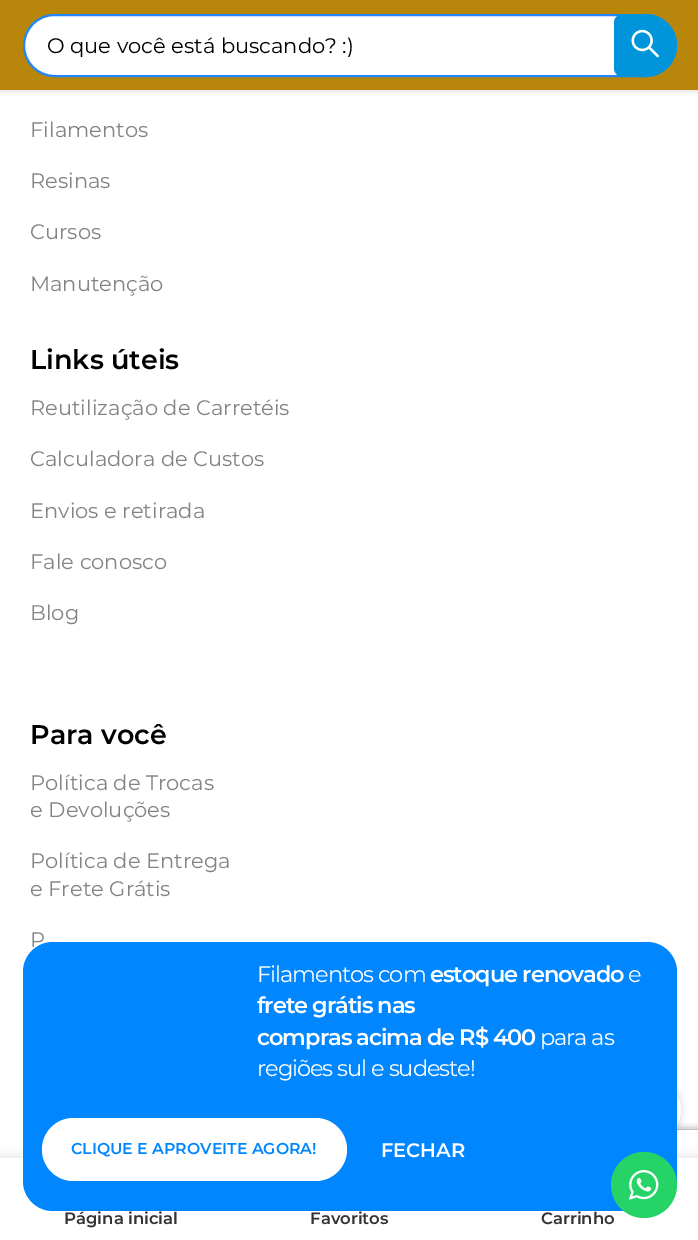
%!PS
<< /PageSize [698 1240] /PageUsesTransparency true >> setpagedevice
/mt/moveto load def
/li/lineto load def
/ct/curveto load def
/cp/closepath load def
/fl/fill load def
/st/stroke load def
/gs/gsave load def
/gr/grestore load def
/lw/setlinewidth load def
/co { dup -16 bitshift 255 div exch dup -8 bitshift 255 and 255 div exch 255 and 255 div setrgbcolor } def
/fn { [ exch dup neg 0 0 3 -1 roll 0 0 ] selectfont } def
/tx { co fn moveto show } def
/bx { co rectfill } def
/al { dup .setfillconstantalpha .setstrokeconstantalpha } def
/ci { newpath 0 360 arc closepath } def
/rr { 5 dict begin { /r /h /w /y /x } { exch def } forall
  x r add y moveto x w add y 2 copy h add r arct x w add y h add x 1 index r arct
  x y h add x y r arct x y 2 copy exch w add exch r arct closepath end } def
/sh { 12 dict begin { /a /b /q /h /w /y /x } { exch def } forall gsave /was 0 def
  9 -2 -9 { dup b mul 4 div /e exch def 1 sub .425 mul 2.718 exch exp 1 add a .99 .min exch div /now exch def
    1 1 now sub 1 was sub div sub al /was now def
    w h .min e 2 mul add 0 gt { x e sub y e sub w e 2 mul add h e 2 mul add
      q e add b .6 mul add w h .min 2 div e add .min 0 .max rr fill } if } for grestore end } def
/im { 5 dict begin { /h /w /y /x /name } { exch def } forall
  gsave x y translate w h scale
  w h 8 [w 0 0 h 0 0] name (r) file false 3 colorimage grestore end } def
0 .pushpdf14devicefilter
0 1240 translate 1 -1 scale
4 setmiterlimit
0 0 698 1240 16#FFFFFF bx
16#000000 co
0 2 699 90 0 2 .1 sh
0 0 698 90 16#B8860B bx
16#FFFFFF co
24 15 652 61 30.5 rr gs fl gr
16#1F86FB co
2 lw
st
16#0094DA co
623 14 mt 645.5 14 li 663 14 677 28 677 45.5 ct 677 63 663 77 645.5 77 ct 623 77 li 618 77 614 73 614 68 ct 614 23 li 614 18 618 14 623 14 ct cp fl
(media/1.raw) 631 29 28 29 im
gs
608 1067 mt 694 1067 li 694 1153 li 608 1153 li cp 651 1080 mt 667.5 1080 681 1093.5 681 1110 ct 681 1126.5 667.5 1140 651 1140 ct 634.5 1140 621 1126.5 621 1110 ct 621 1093.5 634.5 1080 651 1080 ct cp eoclip newpath
16#000000 co
621 1080 60 60 30 4 .17 sh
gr
gs
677 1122 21 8 rectclip
16#808080 co
594 1130 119 90 3 4 1 sh
gr
0.9 al
16#FFFFFF co
651 1110 30 ci fl
1 al
16#000000 co
0 1158 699 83 0 7 .12 sh
0 1158 698 82 16#FFFFFF bx
(O que você está buscando? :\)) 47 53 /Montserrat-Regular 21 16#000000 tx
(Filamentos) 30 137 /Montserrat-Regular 21 16#838383 tx
(Resinas) 30 188 /Montserrat-Regular 21 16#838383 tx
(Cursos) 30 239 /Montserrat-Regular 21 16#838383 tx
(Manutenção) 30 291 /Montserrat-Regular 21 16#838383 tx
(Links úteis) 30 369 /Montserrat-SemiBold 27 16#000000 tx
(Reutilização de Carretéis) 30 415 /Montserrat-Regular 21 16#838383 tx
(Calculadora de Custos) 30 466 /Montserrat-Regular 21 16#838383 tx
(Envios e retirada) 30 518 /Montserrat-Regular 21 16#838383 tx
(Fale conosco) 30 569 /Montserrat-Regular 21 16#838383 tx
(Blog) 30 620 /Montserrat-Regular 21 16#838383 tx
(Para você) 30 744 /Montserrat-SemiBold 27 16#000000 tx
(Política de Trocas) 30 790 /Montserrat-Regular 21 16#838383 tx
(e Devoluções) 30 817 /Montserrat-Regular 21 16#838383 tx
(Política de Entrega) 30 868 /Montserrat-Regular 21 16#838383 tx
(e Frete Grátis) 30 896 /Montserrat-Regular 21 16#838383 tx
(P) 30 947 /Montserrat-Regular 21 16#838383 tx
16#0087FF co
23 942 654 269 30 rr fl
/Montserrat-Regular 22.5 fn
16#FFFFFF co
257 982 mt -1.05 0 (Filamentos com) ashow
/Montserrat-SemiBold 22.5 fn
430 982 mt -1.05 0 (estoque renovado) ashow
/Montserrat-Regular 22.5 fn
628 982 mt -1.05 0 (e) ashow
/Montserrat-SemiBold 22.5 fn
257 1013 mt -1.05 0 (frete grátis nas) ashow
257 1045 mt -1.05 0 (compras acima de R$ 400) ashow
/Montserrat-Regular 22.5 fn
540 1045 mt -1.05 0 (para as) ashow
257 1076 mt -1.05 0 (regiões sul e sudeste!) ashow
42 1118 305 63 31.5 rr fl
(CLIQUE E APROVEITE AGORA!) 71 1154 /Montserrat-SemiBold 15.75 16#0087FF tx
(FECHAR) 381 1157 /Montserrat-SemiBold 19.5 16#FFFFFF tx
(Página inicial) 64 1224 /Montserrat-SemiBold 16.5 16#333333 tx
(Favoritos) 310 1224 /Montserrat-SemiBold 16.5 16#333333 tx
(Carrinho) 541 1224 /Montserrat-SemiBold 16.5 16#333333 tx
16#25D366 co
644 1185 33 ci fl
(media/2.raw) 629 1170 30 30 im
.poppdf14devicefilter showpage
